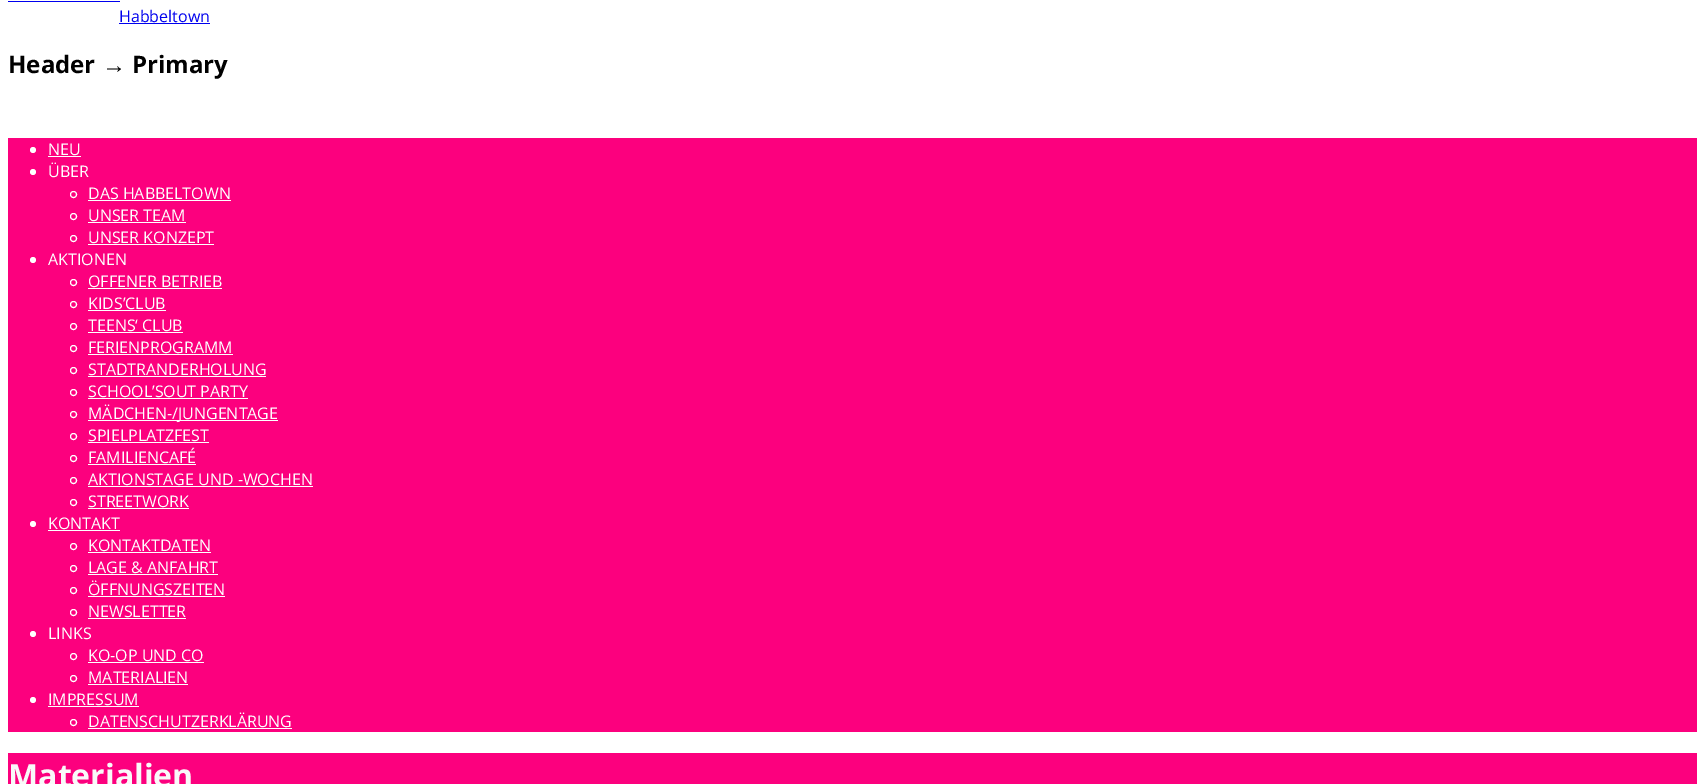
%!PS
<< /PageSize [1705 784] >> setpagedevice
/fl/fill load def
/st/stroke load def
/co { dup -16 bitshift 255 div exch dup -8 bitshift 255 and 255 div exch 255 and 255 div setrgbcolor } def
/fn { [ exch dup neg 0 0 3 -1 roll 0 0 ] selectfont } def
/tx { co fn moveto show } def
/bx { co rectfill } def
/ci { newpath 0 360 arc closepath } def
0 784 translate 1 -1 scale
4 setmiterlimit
0 0 1705 784 16#FFFFFF bx
8 1 112 1 16#0000EE bx
119 23 91 1 16#0000EE bx
8 138 1689 594 16#FC007E bx
16#FFFFFF co
33 150 3 ci fl
48 156 33 1 16#FFFFFF bx
33 172 3 ci fl
73.5 194.5 3 ci st
88 200 143 1 16#FFFFFF bx
73.5 216.5 3 ci st
88 222 98 1 16#FFFFFF bx
73.5 238.5 3 ci st
88 244 126 1 16#FFFFFF bx
33 260 3 ci fl
73.5 282.5 3 ci st
88 288 134 1 16#FFFFFF bx
73.5 304.5 3 ci st
88 310 78 1 16#FFFFFF bx
73.5 326.5 3 ci st
88 332 95 1 16#FFFFFF bx
73.5 348.5 3 ci st
88 354 145 1 16#FFFFFF bx
73.5 370.5 3 ci st
88 376 178 1 16#FFFFFF bx
73.5 392.5 3 ci st
88 398 160 1 16#FFFFFF bx
73.5 414.5 3 ci st
88 420 190 1 16#FFFFFF bx
73.5 436.5 3 ci st
88 442 121 1 16#FFFFFF bx
73.5 458.5 3 ci st
88 464 108 1 16#FFFFFF bx
73.5 480.5 3 ci st
88 486 225 1 16#FFFFFF bx
73.5 502.5 3 ci st
88 508 101 1 16#FFFFFF bx
33 524 3 ci fl
48 530 72 1 16#FFFFFF bx
73.5 546.5 3 ci st
88 552 123 1 16#FFFFFF bx
73.5 568.5 3 ci st
88 574 130 1 16#FFFFFF bx
73.5 590.5 3 ci st
88 596 137 1 16#FFFFFF bx
73.5 612.5 3 ci st
88 618 98 1 16#FFFFFF bx
33 634 3 ci fl
73.5 656.5 3 ci st
88 662 116 1 16#FFFFFF bx
73.5 678.5 3 ci st
88 684 100 1 16#FFFFFF bx
33 700 3 ci fl
48 706 91 1 16#FFFFFF bx
73.5 722.5 3 ci st
88 728 204 1 16#FFFFFF bx
8 753 1689 31 16#FC007E bx
(Habbeltown) 119 22 /OpenSans-Regular 16 16#0000EE tx
(Header) 8 73 /OpenSans-Bold 24 16#000000 tx
(→) 102 73 /LiberationSans-Bold 24 16#000000 tx
(Primary) 132 73 /OpenSans-Bold 24 16#000000 tx
(NEU) 48 155 /OpenSans-Regular 16 16#FFFFFF tx
(ÜBER) 48 177 /OpenSans-Regular 16 16#FFFFFF tx
(DAS HABBELTOWN) 88 199 /OpenSans-Regular 16 16#FFFFFF tx
(UNSER TEAM) 88 221 /OpenSans-Regular 16 16#FFFFFF tx
(UNSER KONZEPT) 88 243 /OpenSans-Regular 16 16#FFFFFF tx
(AKTIONEN) 48 265 /OpenSans-Regular 16 16#FFFFFF tx
(OFFENER BETRIEB) 88 287 /OpenSans-Regular 16 16#FFFFFF tx
(KIDS’CLUB) 88 309 /OpenSans-Regular 16 16#FFFFFF tx
(TEENS‘ CLUB) 88 331 /OpenSans-Regular 16 16#FFFFFF tx
(FERIENPROGRAMM) 88 353 /OpenSans-Regular 16 16#FFFFFF tx
(STADTRANDERHOLUNG) 88 375 /OpenSans-Regular 16 16#FFFFFF tx
(SCHOOL’SOUT PARTY) 88 397 /OpenSans-Regular 16 16#FFFFFF tx
(MÄDCHEN-/JUNGENTAGE) 88 419 /OpenSans-Regular 16 16#FFFFFF tx
(SPIELPLATZFEST) 88 441 /OpenSans-Regular 16 16#FFFFFF tx
(FAMILIENCAFÉ) 88 463 /OpenSans-Regular 16 16#FFFFFF tx
(AKTIONSTAGE UND -WOCHEN) 88 485 /OpenSans-Regular 16 16#FFFFFF tx
(STREETWORK) 88 507 /OpenSans-Regular 16 16#FFFFFF tx
(KONTAKT) 48 529 /OpenSans-Regular 16 16#FFFFFF tx
(KONTAKTDATEN) 88 551 /OpenSans-Regular 16 16#FFFFFF tx
(LAGE & ANFAHRT) 88 573 /OpenSans-Regular 16 16#FFFFFF tx
(ÖFFNUNGSZEITEN) 88 595 /OpenSans-Regular 16 16#FFFFFF tx
(NEWSLETTER) 88 617 /OpenSans-Regular 16 16#FFFFFF tx
(LINKS) 48 639 /OpenSans-Regular 16 16#FFFFFF tx
(KO-OP UND CO) 88 661 /OpenSans-Regular 16 16#FFFFFF tx
(MATERIALIEN) 88 683 /OpenSans-Regular 16 16#FFFFFF tx
(IMPRESSUM) 48 705 /OpenSans-Regular 16 16#FFFFFF tx
(DATENSCHUTZERKLÄRUNG) 88 727 /OpenSans-Regular 16 16#FFFFFF tx
(Materialien) 8 787 /OpenSans-Bold 32 16#F9F9F9 tx
showpage
